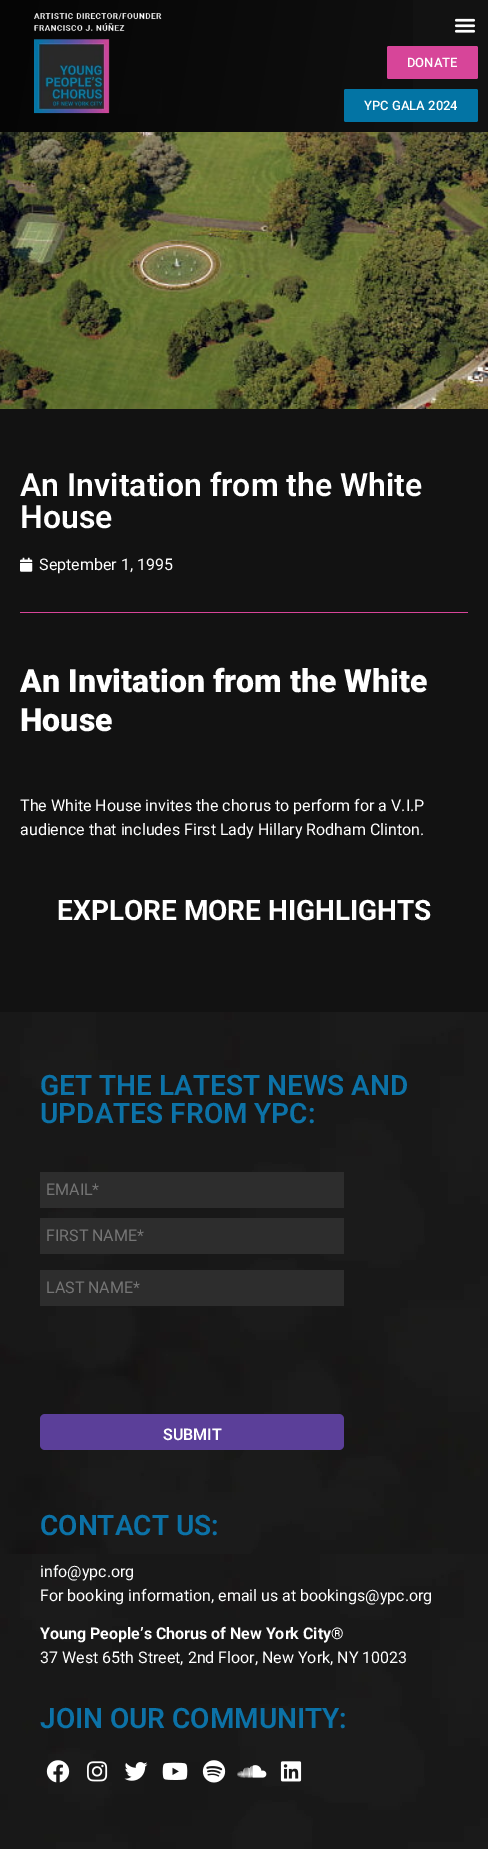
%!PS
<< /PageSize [488 1849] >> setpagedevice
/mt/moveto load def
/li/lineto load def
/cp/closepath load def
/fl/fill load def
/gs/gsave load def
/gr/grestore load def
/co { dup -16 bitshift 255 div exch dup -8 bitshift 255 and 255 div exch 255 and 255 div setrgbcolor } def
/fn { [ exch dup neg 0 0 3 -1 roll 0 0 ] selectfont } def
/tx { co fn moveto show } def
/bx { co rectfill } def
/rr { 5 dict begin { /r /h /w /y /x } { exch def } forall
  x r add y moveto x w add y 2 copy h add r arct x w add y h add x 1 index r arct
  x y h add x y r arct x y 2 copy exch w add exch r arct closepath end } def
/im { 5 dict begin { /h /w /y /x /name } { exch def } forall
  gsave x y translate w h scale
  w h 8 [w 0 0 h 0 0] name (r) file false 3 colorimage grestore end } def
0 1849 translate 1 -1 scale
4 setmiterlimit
0 0 488 1849 16#121212 bx
gs 0 0 mt 413 0 li 413 132 li 0 132 li cp clip newpath
<< /ShadingType 2 /ColorSpace /DeviceRGB /Coords [-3.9 22 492 110] /Extend [true true] /Function << /FunctionType 2 /Domain [0 1] /C0 [.02 .02 .02] /C1 [.071 .071 .071] /N 1 >> >> shfill gr
(media/1.raw) 34 13 128 101 im
(media/2.raw) 454 18 22 15 im
16#D74599 co
387 46 91 33 2 rr fl
16#0374A4 co
344 89 134 33 2 rr fl
(media/3.raw) 0 132 488 277 im
(media/4.raw) 20 557 13 15 im
20 612 448 1 16#D74599 bx
(media/5.raw) 0 1012 488 837 im
40 1172 304 36 16#2D2D2D bx
40 1218 304 36 16#2D2D2D bx
40 1270 304 36 16#2D2D2D bx
16#5B3F99 co
40 1414 304 36 5 rr fl
(media/6.raw) 46 1760 24 23 im
(media/7.raw) 87 1761 21 21 im
(media/8.raw) 124 1762 24 19 im
(media/9.raw) 162 1762 26 18 im
(media/10.raw) 202 1760 24 23 im
(media/11.raw) 237 1765 30 13 im
(media/12.raw) 280 1761 22 21 im
(DONATE) 407 67 /Roboto-Medium 13 16#FFFFFF tx
(YPC GALA 2024) 364 110 /Roboto-Medium 13 16#FFFFFF tx
(An Invitation from the White) 20 496 /Roboto-SemiBold 32 16#FFFFFF tx
(House) 20 528 /Roboto-SemiBold 32 16#FFFFFF tx
(September 1, 1995) 39 570 /Roboto-Regular 16 16#FFFFFF tx
(An Invitation from the White) 20 692 /Roboto-Black 32 16#FFFFFF tx
(House) 20 731 /Roboto-Black 32 16#FFFFFF tx
(The White House invites the chorus to perform for a V.I.P) 20 811 /Roboto-Regular 16 16#FFFFFF tx
(audience that includes First Lady Hillary Rodham Clinton.) 20 835 /Roboto-Regular 16 16#FFFFFF tx
(EXPLORE MORE HIGHLIGHTS) 57 920 /Roboto-Bold 28 16#FFFFFF tx
(GET THE LATEST NEWS AND) 40 1095 /Roboto-SemiBold 28 16#0C72A7 tx
(UPDATES FROM YPC:) 40 1123 /Roboto-SemiBold 28 16#0C72A7 tx
(EMAIL*) 46 1195 /Roboto-Regular 16 16#757575 tx
(FIRST NAME*) 46 1241 /Roboto-Regular 16 16#757575 tx
(LAST NAME*) 46 1293 /Roboto-Regular 16 16#757575 tx
(SUBMIT) 163 1440 /Roboto-SemiBold 16 16#FFFFFF tx
(CONTACT US:) 40 1535 /Roboto-SemiBold 28 16#0C72A7 tx
(info@ypc.org) 40 1577 /Roboto-Regular 16 16#FFFFFF tx
(For booking information, email us at bookings@ypc.org) 40 1601 /Roboto-Regular 16 16#FFFFFF tx
(Young People’s Chorus of New York City®) 40 1639 /Roboto-Bold 16 16#FFFFFF tx
(37 West 65th Street, 2nd Floor, New York, NY 10023) 40 1663 /Roboto-Regular 16 16#FFFFFF tx
(JOIN OUR COMMUNITY:) 40 1728 /Roboto-SemiBold 28 16#0C72A7 tx
showpage
